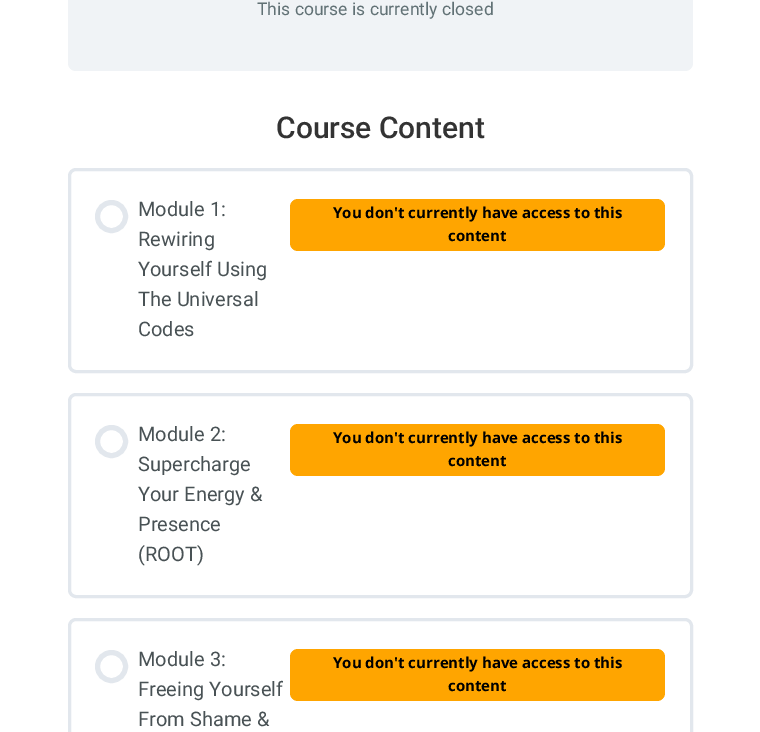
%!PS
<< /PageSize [760 732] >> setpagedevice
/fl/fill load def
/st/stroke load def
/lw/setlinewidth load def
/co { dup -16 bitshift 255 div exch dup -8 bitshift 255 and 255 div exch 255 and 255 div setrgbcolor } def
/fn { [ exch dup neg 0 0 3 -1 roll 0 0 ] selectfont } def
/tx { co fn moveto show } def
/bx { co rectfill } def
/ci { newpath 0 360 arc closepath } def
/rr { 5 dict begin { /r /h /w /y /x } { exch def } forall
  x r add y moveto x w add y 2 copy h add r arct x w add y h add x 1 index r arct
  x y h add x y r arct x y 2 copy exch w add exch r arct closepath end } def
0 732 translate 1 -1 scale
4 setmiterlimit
0 0 760 732 16#FFFFFF bx
16#F0F3F6 co
68 -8 625 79 8 rr fl
16#E2E7ED co
3 lw
69.5 169.5 622 202 6.5 rr st
5 lw
111.5 216.5 14 ci st
16#FFA500 co
290 199 375 52 8 rr fl
16#E2E7ED co
3 lw
69.5 394.5 622 202 6.5 rr st
5 lw
111.5 441.5 14 ci st
16#FFA500 co
290 424 375 52 8 rr fl
16#E2E7ED co
3 lw
69.5 619.5 622 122 6.5 rr st
5 lw
111.5 666.5 14 ci st
16#FFA500 co
290 649 375 52 8 rr fl
(This course is currently closed) 257 15 /Roboto-Regular 17.5 16#617175 tx
(Course Content) 276 138 /Roboto-Medium 30 16#333333 tx
(Module 1:) 138 216 /Roboto-Regular 20 16#495255 tx
(Rewiring) 138 246 /Roboto-Regular 20 16#495255 tx
(Yourself Using) 138 276 /Roboto-Regular 20 16#495255 tx
(The Universal) 138 306 /Roboto-Regular 20 16#495255 tx
(Codes) 138 336 /Roboto-Regular 20 16#495255 tx
(You don't currently have access to this) 333 218 /OpenSans-Bold 15 16#000000 tx
(content) 448 241 /OpenSans-Bold 15 16#000000 tx
(Module 2:) 138 441 /Roboto-Regular 20 16#495255 tx
(Supercharge) 138 471 /Roboto-Regular 20 16#495255 tx
(Your Energy &) 138 501 /Roboto-Regular 20 16#495255 tx
(Presence) 138 531 /Roboto-Regular 20 16#495255 tx
(\(ROOT\)) 138 561 /Roboto-Regular 20 16#495255 tx
(You don't currently have access to this) 333 443 /OpenSans-Bold 15 16#000000 tx
(content) 448 466 /OpenSans-Bold 15 16#000000 tx
(Module 3:) 138 666 /Roboto-Regular 20 16#495255 tx
(Freeing Yourself) 138 696 /Roboto-Regular 20 16#495255 tx
(From Shame &) 138 726 /Roboto-Regular 20 16#495255 tx
(You don't currently have access to this) 333 668 /OpenSans-Bold 15 16#000000 tx
(content) 448 691 /OpenSans-Bold 15 16#000000 tx
showpage
